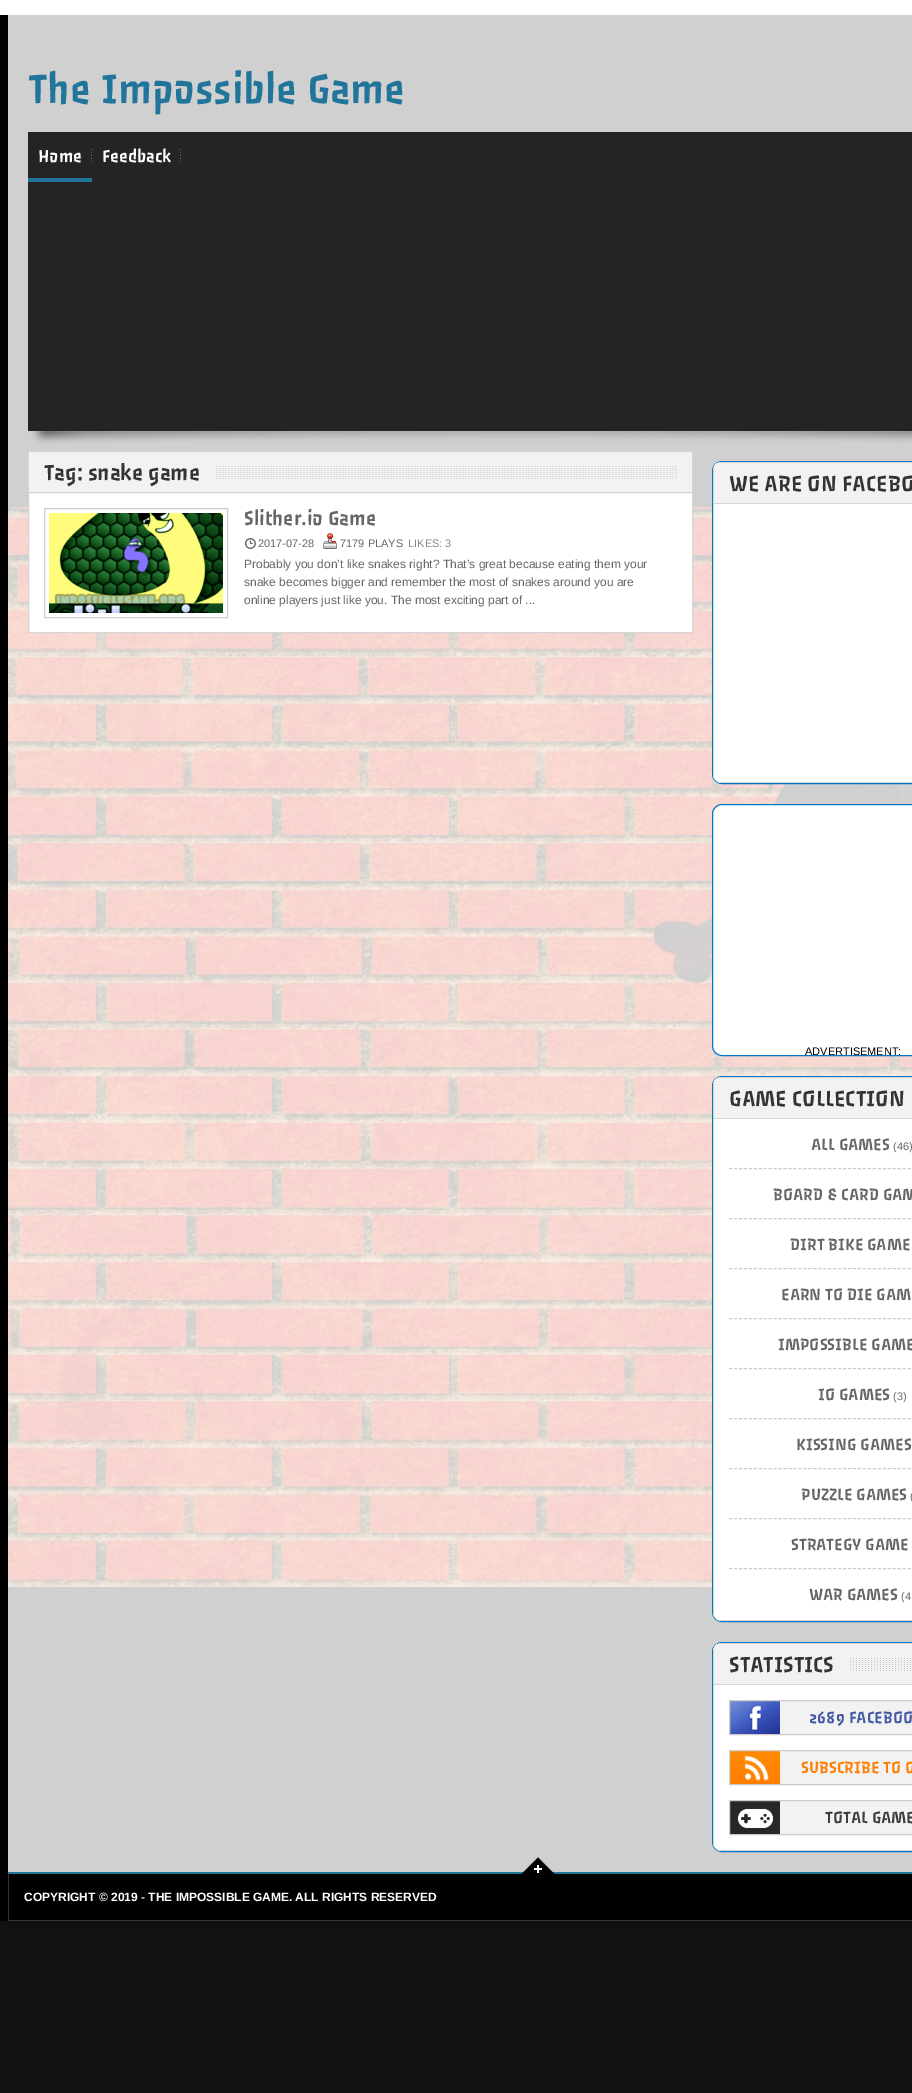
%!PS
<< /PageSize [912 2093] >> setpagedevice
/mt/moveto load def
/li/lineto load def
/ct/curveto load def
/cp/closepath load def
/fl/fill load def
/st/stroke load def
/gs/gsave load def
/gr/grestore load def
/co { dup -16 bitshift 255 div exch dup -8 bitshift 255 and 255 div exch 255 and 255 div setrgbcolor } def
/fn { [ exch dup neg 0 0 3 -1 roll 0 0 ] selectfont } def
/tx { co fn moveto show } def
/bx { co rectfill } def
/rr { 5 dict begin { /r /h /w /y /x } { exch def } forall
  x r add y moveto x w add y 2 copy h add r arct x w add y h add x 1 index r arct
  x y h add x y r arct x y 2 copy exch w add exch r arct closepath end } def
/im { 5 dict begin { /h /w /y /x /name } { exch def } forall
  gsave x y translate w h scale
  w h 8 [w 0 0 h 0 0] name (r) file false 3 colorimage grestore end } def
0 2093 translate 1 -1 scale
4 setmiterlimit
0 0 912 2093 16#10120F bx
8 15 904 1857 16#CFD0CF bx
(media/1.raw) 8 507 904 1080 im
0 0 912 15 16#FFFFFF bx
0 15 8 1906 16#000000 bx
28 132 884 299 16#242424 bx
(media/2.raw) 91 149 1 13 im
(media/2.raw) 180 149 1 13 im
28 178 64 4 16#21759B bx
(media/3.raw) 31 431 881 13 im
29 452 663 40 16#F2F2F2 bx
28 451 665 1 16#D5D5D5 bx
692 451 1 41 16#D5D5D5 bx
28 451 1 41 16#D5D5D5 bx
(media/4.raw) 216 466 461 13 im
16#FFFFFF co
28.5 492.5 mt 692.5 492.5 li 692.5 632.5 li 28.5 632.5 li cp gs fl gr
16#D5D5D5 co
st
16#CECECE co
44.5 508.5 183 109 rectstroke
(media/5.raw) 49 513 174 100 im
(media/6.raw) 244 538 12 11 im
(media/7.raw) 323 533 14 16 im
16#0278C7 co
712.5 461.5 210 322 9.5 rr st
gs
713 462 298 321 9 rr clip newpath
713 462 199 1 16#D5D5D5 bx
713 462 1 41 16#D5D5D5 bx
714 463 198 40 16#F2F2F2 bx
gr
16#FFFFFF co
713 503 mt 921 503 li 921 774 li 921 779 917 783 912 783 ct 722 783 li 717 783 713 779 713 774 ct cp fl
16#D5D5D5 co
714 504 mt 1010 504 li 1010 778 li 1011 774 li 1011 503 li 713 503 li 713 774 li 714 778 li cp 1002 783 mt 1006 782 li 718 782 li 722 783 li cp eofill
16#FFFFFF co
712.5 804.5 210 251 9.5 rr gs fl gr
16#0278C7 co
st
712.5 1076.5 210 545 9.5 rr st
gs
713 1077 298 544 9 rr clip newpath
713 1077 199 1 16#D5D5D5 bx
713 1077 1 41 16#D5D5D5 bx
714 1078 198 40 16#F2F2F2 bx
gr
16#FFFFFF co
713 1118 mt 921 1118 li 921 1612 li 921 1617 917 1621 912 1621 ct 722 1621 li 717 1621 713 1617 713 1612 ct cp fl
16#D5D5D5 co
714 1119 mt 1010 1119 li 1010 1616 li 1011 1612 li 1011 1118 li 713 1118 li 713 1612 li 714 1616 li cp 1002 1621 mt 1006 1620 li 718 1620 li 722 1621 li cp eofill
16#CCCCCC co
[3 1.96] 0 setdash
729 1168.5 mt 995 1168.5 li st
729 1218.5 mt 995 1218.5 li st
729 1268.5 mt 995 1268.5 li st
729 1318.5 mt 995 1318.5 li st
729 1368.5 mt 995 1368.5 li st
729 1418.5 mt 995 1418.5 li st
729 1468.5 mt 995 1468.5 li st
729 1518.5 mt 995 1518.5 li st
729 1568.5 mt 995 1568.5 li st
16#0278C7 co
[] 0 setdash
712.5 1642.5 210 209 9.5 rr st
gs
713 1643 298 208 9 rr clip newpath
713 1643 199 1 16#D5D5D5 bx
713 1643 1 41 16#D5D5D5 bx
714 1644 198 40 16#F2F2F2 bx
gr
(media/8.raw) 850 1658 61 13 im
gs
713 1643 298 208 9 rr clip newpath
714 1644 135 40 16#F2F2F2 bx
gr
16#FFFFFF co
713 1684 mt 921 1684 li 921 1842 li 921 1847 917 1851 912 1851 ct 722 1851 li 717 1851 713 1847 713 1842 ct cp fl
16#D5D5D5 co
714 1685 mt 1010 1685 li 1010 1846 li 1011 1845 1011 1843 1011 1842 ct 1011 1684 li 713 1684 li 713 1842 li 713 1843 713 1845 714 1846 ct cp 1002 1851 mt 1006 1850 li 718 1850 li 722 1851 li cp eofill
780 1701 132 33 16#F2F2F2 bx
(media/9.raw) 730 1701 50 33 im
16#CCCCCC co
729.5 1700.5 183 34 rectstroke
780 1751 132 33 16#F2F2F2 bx
(media/10.raw) 730 1751 50 33 im
16#CCCCCC co
729.5 1750.5 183 34 rectstroke
780 1801 132 33 16#F2F2F2 bx
(media/11.raw) 730 1801 50 33 im
16#CCCCCC co
729.5 1800.5 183 34 rectstroke
8 1872 904 2 16#21759B bx
9 1874 903 46 16#000000 bx
8 1920 904 1 16#333333 bx
8 1874 1 47 16#333333 bx
(media/12.raw) 521 1857 34 17 im
(The Impossible Game) 28 103 /PasseroOne-Regular 45 16#21759B tx
(Home) 38 162 /PasseroOne-Regular 19 16#FFFFFF tx
(Feedback) 102 162 /PasseroOne-Regular 19 16#FFFFFF tx
(Tag: snake game) 44 480 /PasseroOne-Regular 24 16#333333 tx
(Slither.io Game) 244 525 /PasseroOne-Regular 22 16#666666 tx
(2017-07-28) 258 547 /LiberationSans-Regular 11 16#666666 tx
(7179 PLAYS) 340 547 /LiberationSans-Regular 11 16#666666 tx
(LIKES: 3) 408 547 /LiberationSans-Regular 11 16#888888 tx
(Probably you don’t like snakes right? That’s great because eating them your) 244 568 /LiberationSans-Regular 12 16#666666 tx
(snake becomes bigger and remember the most of snakes around you are) 244 586 /LiberationSans-Regular 12 16#666666 tx
(online players just like you. The most exciting part of ...) 244 604 /LiberationSans-Regular 12 16#666666 tx
(WE ARE ON FACEBO) 729 491 /PasseroOne-Regular 24 16#333333 tx
(ADVERTISEMENT:) 805 1055 /LiberationSans-Regular 11 16#000000 tx
(GAME COLLECTION) 729 1106 /PasseroOne-Regular 24 16#333333 tx
(ALL GAMES) 811 1150 /PasseroOne-Regular 18 16#666666 tx
(\(46\)) 893 1150 /LiberationSans-Regular 11 16#666666 tx
(BOARD & CARD GAM) 773 1200 /PasseroOne-Regular 18 16#666666 tx
(DIRT BIKE GAME) 790 1250 /PasseroOne-Regular 18 16#666666 tx
(EARN TO DIE GAM) 781 1300 /PasseroOne-Regular 18 16#666666 tx
(IMPOSSIBLE GAME) 778 1350 /PasseroOne-Regular 18 16#666666 tx
(IO GAMES) 818 1400 /PasseroOne-Regular 18 16#666666 tx
(\(3\)) 893 1400 /LiberationSans-Regular 11 16#666666 tx
(KISSING GAMES) 796 1450 /PasseroOne-Regular 18 16#666666 tx
(PUZZLE GAMES) 801 1500 /PasseroOne-Regular 18 16#666666 tx
(\() 910 1500 /LiberationSans-Regular 11 16#666666 tx
(STRATEGY GAME) 791 1550 /PasseroOne-Regular 18 16#666666 tx
(WAR GAMES) 809 1600 /PasseroOne-Regular 18 16#666666 tx
(\(4) 901 1600 /LiberationSans-Regular 11 16#666666 tx
(STATISTICS) 729 1672 /PasseroOne-Regular 24 16#333333 tx
(2689 FACEBOO) 809 1723 /PasseroOne-Regular 18 16#4358A5 tx
(SUBSCRIBE TO O) 801 1773 /PasseroOne-Regular 18 16#FF7E01 tx
(TOTAL GAME) 825 1823 /PasseroOne-Regular 18 16#3F3C3D tx
(COPYRIGHT © 2019 - THE IMPOSSIBLE GAME. ALL RIGHTS RESERVED) 24 1901 /LiberationSans-Bold 12 16#FFFFFF tx
showpage
